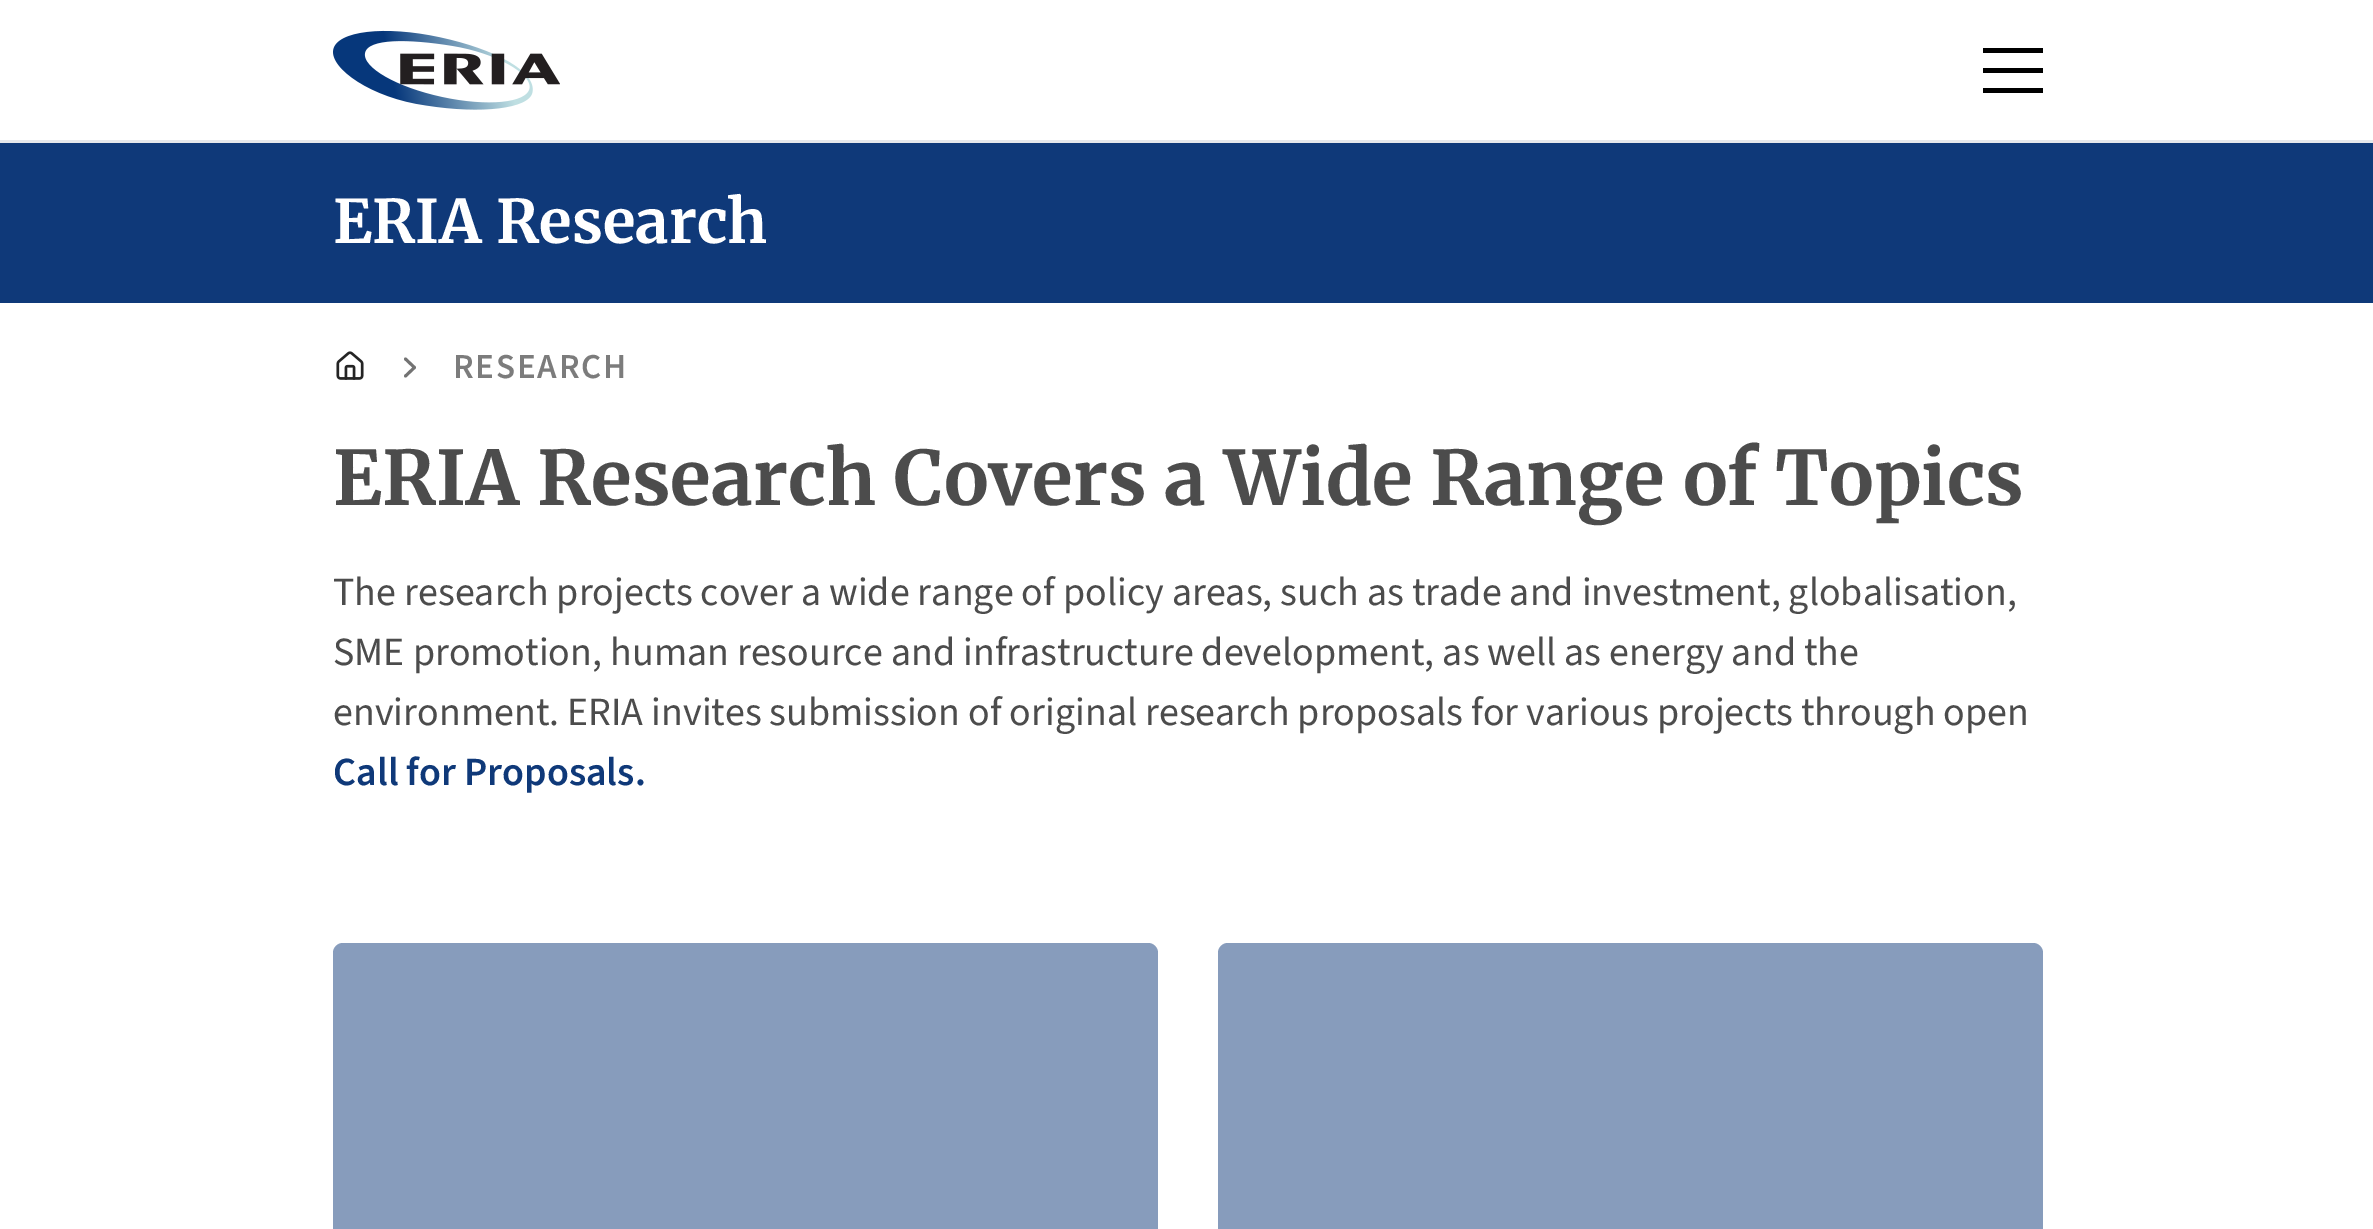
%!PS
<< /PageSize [2373 1229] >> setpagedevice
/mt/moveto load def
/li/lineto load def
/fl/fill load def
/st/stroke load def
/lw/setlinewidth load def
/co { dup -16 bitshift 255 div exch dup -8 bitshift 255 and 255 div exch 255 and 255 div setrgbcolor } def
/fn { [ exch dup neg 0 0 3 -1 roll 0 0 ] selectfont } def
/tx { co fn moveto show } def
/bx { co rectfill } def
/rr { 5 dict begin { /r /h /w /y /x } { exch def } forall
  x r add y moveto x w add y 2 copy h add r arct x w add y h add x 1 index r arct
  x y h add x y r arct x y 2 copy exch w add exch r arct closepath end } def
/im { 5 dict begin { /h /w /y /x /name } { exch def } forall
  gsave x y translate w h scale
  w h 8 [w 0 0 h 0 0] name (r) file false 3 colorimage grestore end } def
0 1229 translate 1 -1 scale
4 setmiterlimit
0 0 2373 1229 16#FFFFFF bx
0 140 2373 3 16#E5E7EB bx
(media/1.raw) 333 30 227 80 im
1983 48 60 5 16#000000 bx
1983 68 60 5 16#000000 bx
1983 88 60 5 16#000000 bx
0 143 2373 160 16#0F3979 bx
(media/2.raw) 336 351 28 29 im
16#737373 co
2.9 lw
1 setlinecap
1 setlinejoin
405.5 376 mt 414.5 367.5 li 405.5 359 li st
16#879CBC co
333 943 825 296 10 rr fl
1218 943 825 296 10 rr fl
(ERIA Research) 333 243 /Merriweather-Bold 60 16#FFFFFF tx
/SourceSans3-SemiBold 35 fn
16#7C7C7C co
453 378 mt 1.75 0 (RESEARCH) ashow
(ERIA Research Covers a Wide Range of Topics) 333 505 /Merriweather-Bold 75 16#4C4C4C tx
(The research projects cover a wide range of policy areas, such as trade and investment, globalisation,) 333 605 /SourceSans3-Regular 40 16#4C4C4C tx
(SME promotion, human resource and infrastructure development, as well as energy and the) 333 665 /SourceSans3-Regular 40 16#4C4C4C tx
(environment. ERIA invites submission of original research proposals for various projects through open) 333 725 /SourceSans3-Regular 40 16#4C4C4C tx
(Call for Proposals.) 333 785 /SourceSans3-SemiBold 40 16#0F3979 tx
showpage
